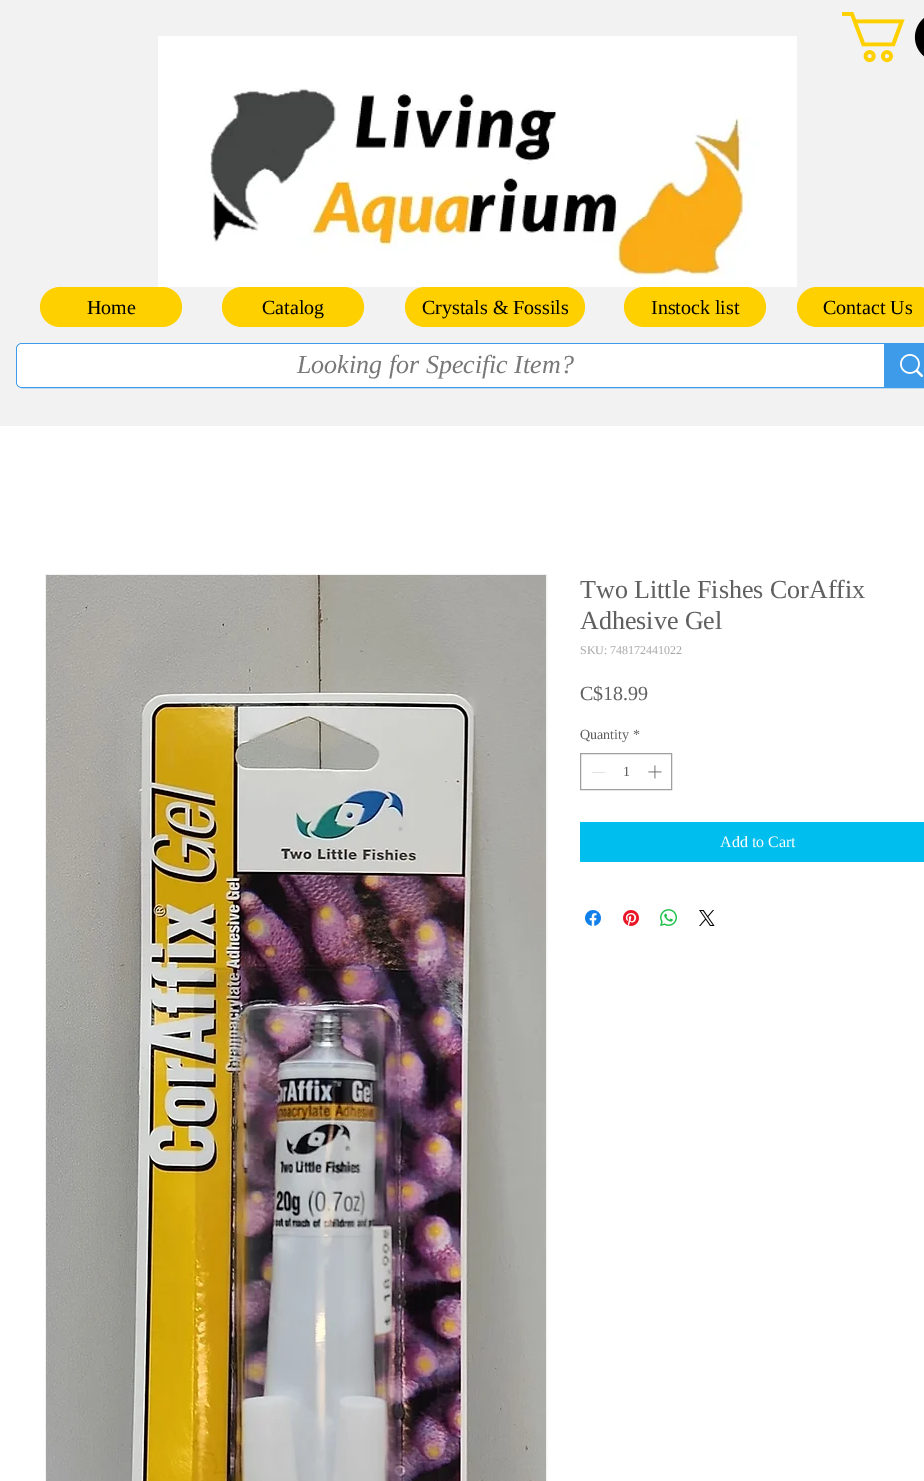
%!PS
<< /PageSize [924 1481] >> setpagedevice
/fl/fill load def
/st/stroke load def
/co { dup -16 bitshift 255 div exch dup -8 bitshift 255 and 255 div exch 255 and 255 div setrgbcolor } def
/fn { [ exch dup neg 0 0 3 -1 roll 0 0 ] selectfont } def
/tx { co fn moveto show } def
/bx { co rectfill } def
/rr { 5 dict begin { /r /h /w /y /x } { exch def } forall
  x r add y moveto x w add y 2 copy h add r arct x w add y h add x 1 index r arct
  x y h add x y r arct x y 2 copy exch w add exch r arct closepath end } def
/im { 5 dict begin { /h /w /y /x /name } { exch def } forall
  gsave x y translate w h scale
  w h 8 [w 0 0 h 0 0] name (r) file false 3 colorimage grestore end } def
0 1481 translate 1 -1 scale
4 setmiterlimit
0 0 924 1481 16#F2F2F2 bx
(media/1.raw) 158 36 639 251 im
(media/2.raw) 842 12 82 51 im
16#FFD000 co
40 287 142 40 20 rr fl
222 287 142 40 20 rr fl
405 287 180 40 20 rr fl
624 287 142 40 20 rr fl
797 287 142 40 20 rr fl
16#3D9BE9 co
16.5 343.5 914 44 5.5 rr st
16#FFFFFF co
17 344 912 43 5 rr fl
884 344 40 43 16#3D9BE9 bx
(media/3.raw) 900 354 23 23 im
0 426 924 1055 16#FFFFFF bx
16#F2F2F2 co
45.5 574.5 501 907 rectstroke
(media/4.raw) 46 575 500 906 im
16#A0A0A0 co
580.5 753.5 91 36 rectstroke
592 772 13 1 16#E3E3E3 bx
(media/5.raw) 648 765 14 14 im
580 822 344 40 16#00BEED bx
(media/6.raw) 585 910 16 16 im
(media/7.raw) 623 910 16 16 im
(media/8.raw) 660 909 17 17 im
(media/9.raw) 699 910 16 16 im
(Home) 87 314 /LiberationSerif-Regular 20 16#000000 tx
(Catalog) 262 314 /LiberationSerif-Regular 20 16#000000 tx
(Crystals & Fossils) 422 314 /LiberationSerif-Regular 20 16#000000 tx
(Instock list) 651 314 /LiberationSerif-Regular 20 16#000000 tx
(Contact Us) 823 314 /LiberationSerif-Regular 20 16#000000 tx
(Looking for Specific Item?) 297 373 /LiberationSerif-Italic 26 16#787878 tx
(Two Little Fishes CorAffix) 580 598 /LiberationSerif-Regular 26 16#606060 tx
(Adhesive Gel) 580 629 /LiberationSerif-Regular 26 16#606060 tx
(SKU: 748172441022) 580 654 /LiberationSerif-Regular 12 16#A8A8A8 tx
(C$18.99) 580 700 /LiberationSerif-Regular 20 16#606060 tx
(Quantity) 580 739 /LiberationSerif-Regular 14 16#606060 tx
(*) 633 739 /LiberationSerif-Regular 14 16#606060 tx
(1) 623 776 /LiberationSerif-Regular 14 16#606060 tx
(Add to Cart) 720 847 /LiberationSerif-Regular 16 16#FFFFFF tx
showpage
